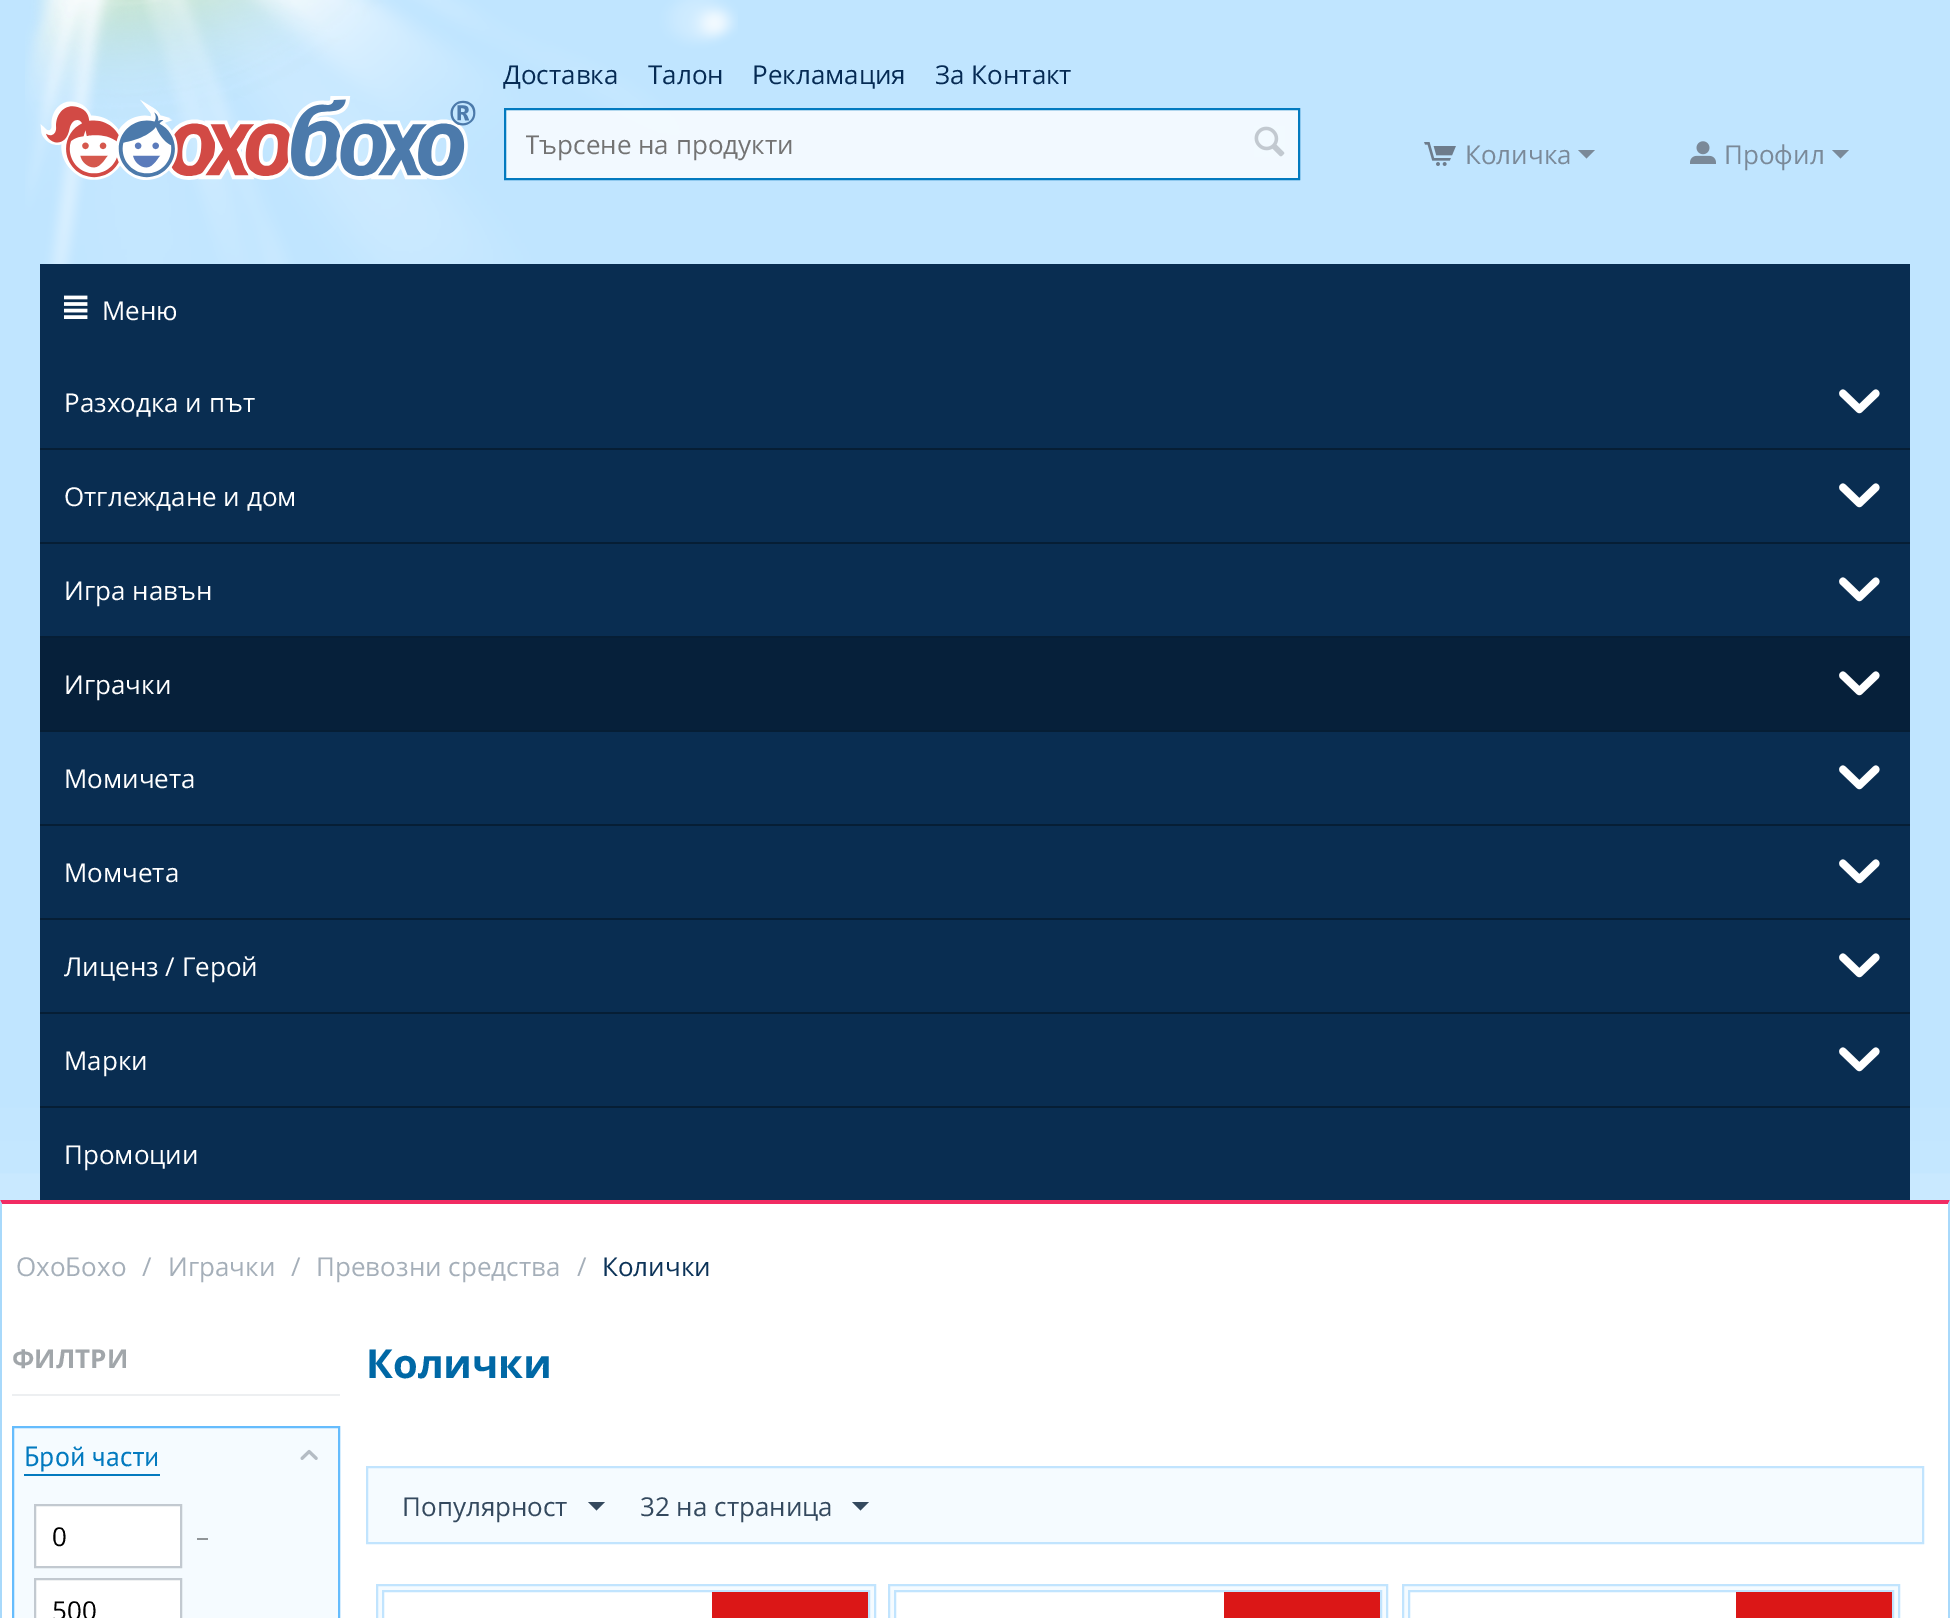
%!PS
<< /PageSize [1950 1618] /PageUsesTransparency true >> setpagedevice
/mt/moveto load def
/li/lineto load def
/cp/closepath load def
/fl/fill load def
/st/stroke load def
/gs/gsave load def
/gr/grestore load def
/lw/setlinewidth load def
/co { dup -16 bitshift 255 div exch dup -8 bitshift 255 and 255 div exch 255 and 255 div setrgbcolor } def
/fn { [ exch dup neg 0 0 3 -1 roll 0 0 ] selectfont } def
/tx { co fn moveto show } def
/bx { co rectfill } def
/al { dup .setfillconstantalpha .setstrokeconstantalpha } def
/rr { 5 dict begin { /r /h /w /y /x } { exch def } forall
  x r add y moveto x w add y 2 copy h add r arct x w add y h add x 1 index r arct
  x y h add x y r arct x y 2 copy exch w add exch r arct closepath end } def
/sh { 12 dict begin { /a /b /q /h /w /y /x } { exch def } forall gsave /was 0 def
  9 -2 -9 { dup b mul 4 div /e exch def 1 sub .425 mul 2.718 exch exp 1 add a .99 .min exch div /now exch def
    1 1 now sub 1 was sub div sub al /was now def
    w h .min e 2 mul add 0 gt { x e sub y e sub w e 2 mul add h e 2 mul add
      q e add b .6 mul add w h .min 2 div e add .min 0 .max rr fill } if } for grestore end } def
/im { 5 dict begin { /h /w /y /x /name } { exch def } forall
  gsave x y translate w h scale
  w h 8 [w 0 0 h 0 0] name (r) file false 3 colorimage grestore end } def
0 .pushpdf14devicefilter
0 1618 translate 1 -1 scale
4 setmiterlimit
0 0 1950 1618 16#FFFFFF bx
0 0 1950 1200 16#C0E5FF bx
(media/1.raw) 25 0 713 264 im
(media/2.raw) 40 96 436 84 im
0.79 al
16#FFFFFF co
505 109 mt 1299 109 li 1299 179 li 505 179 li cp fl
1 al
16#037ABF co
2 lw
505 109 mt 1299 109 li 1299 179 li 505 179 li cp st
(media/3.raw) 1254 126 31 31 im
(media/4.raw) 1424 142 32 24 im
16#7A8998 co
1586.5 158.5 mt 1578 150 li 1595 150 li cp fl
(media/5.raw) 1690 141 26 23 im
1840.5 158.5 mt 1832 150 li 1849 150 li cp fl
16#FFFFFF co
-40 1256 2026 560 0 66 1 sh
40 264 1870 936 16#092D51 bx
(media/6.raw) 64 295 24 24 im
40 448 1870 2 16#061E35 bx
(media/7.raw) 1839 389 41 25 im
40 542 1870 2 16#061E35 bx
(media/7.raw) 1839 483 41 25 im
40 636 1870 2 16#061E35 bx
(media/7.raw) 1839 577 41 25 im
40 730 1870 2 16#061E35 bx
40 638 1870 92 16#06203A bx
(media/8.raw) 1839 671 41 25 im
40 824 1870 2 16#061E35 bx
(media/7.raw) 1839 765 41 25 im
40 918 1870 2 16#061E35 bx
(media/7.raw) 1839 859 41 25 im
40 1012 1870 2 16#061E35 bx
(media/7.raw) 1839 953 41 25 im
40 1106 1870 2 16#061E35 bx
(media/7.raw) 1839 1047 41 25 im
16#F12B63 co
0 1200 mt 1950 1200 li 1948 1204 li 2 1204 li cp fl
16#A8D9FB co
1950 1200 mt 1950 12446 li 1948 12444 li 1948 1204 li cp fl
0 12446 mt 0 1200 li 2 1204 li 2 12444 li cp fl
12 1394 328 2 16#EDEFF1 bx
16#F5FBFF co
13 1427 mt 339 1427 li 339 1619 li 13 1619 li cp gs fl gr
16#65BCFD co
st
24 1474 136 2 16#037ABF bx
(media/9.raw) 300 1449 18 11 im
16#FFFFFF co
35 1505 mt 181 1505 li 181 1567 li 35 1567 li cp gs fl gr
16#C2C9D0 co
st
16#FFFFFF co
35 1579 mt 181 1579 li 181 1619 li 35 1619 li cp gs fl gr
16#C2C9D0 co
st
16#F5FBFF co
367 1467 mt 1923 1467 li 1923 1543 li 367 1543 li cp gs fl gr
16#C1E4FE co
st
16#34495E co
596.5 1510.5 mt 588 1502 li 605 1502 li cp fl
860.5 1510.5 mt 852 1502 li 869 1502 li cp fl
16#F5FBFF co
377 1585 mt 875 1585 li 875 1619 li 377 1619 li cp gs fl gr
16#C1E4FE co
st
384 1592 328 26 16#FFFFFF bx
16#C1E4FE co
383 1591 486 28 rectstroke
712 1592 156 26 16#DB1717 bx
16#F5FBFF co
889 1585 mt 1387 1585 li 1387 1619 li 889 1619 li cp gs fl gr
16#C1E4FE co
st
896 1592 328 26 16#FFFFFF bx
16#C1E4FE co
895 1591 486 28 rectstroke
1224 1592 156 26 16#DB1717 bx
16#F5FBFF co
1403 1585 mt 1899 1585 li 1899 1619 li 1403 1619 li cp gs fl gr
16#C1E4FE co
st
1410 1592 326 26 16#FFFFFF bx
16#C1E4FE co
1409 1591 484 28 rectstroke
1736 1592 156 26 16#DB1717 bx
(Доставка) 503 84 /OpenSans-Regular 26 16#062B54 tx
(Талон) 648 84 /OpenSans-Regular 26 16#062B54 tx
(Рекламация) 752 84 /OpenSans-Regular 26 16#062B54 tx
(За Контакт) 935 84 /OpenSans-Regular 26 16#062B54 tx
gs
526 126 712 36 rectclip
(Търсене на продукти) 525 154 /OpenSans-Regular 26 16#737373 tx
gr
(Количка) 1465 164 /OpenSans-Regular 26 16#7A8998 tx
(Профил) 1724 164 /OpenSans-Regular 26 16#7A8998 tx
(Меню) 102 320 /OpenSans-Regular 26 16#FFFFFF tx
(Разходка и път) 64 412 /OpenSans-Regular 26 16#FFFFFF tx
(Отглеждане и дом) 64 506 /OpenSans-Regular 26 16#FFFFFF tx
(Игра навън) 64 600 /OpenSans-Regular 26 16#FFFFFF tx
(Играчки) 64 694 /OpenSans-Regular 26 16#FFFFFF tx
(Момичета) 64 788 /OpenSans-Regular 26 16#FFFFFF tx
(Момчета) 64 882 /OpenSans-Regular 26 16#FFFFFF tx
(Лиценз / Герой) 64 976 /OpenSans-Regular 26 16#FFFFFF tx
(Марки) 64 1070 /OpenSans-Regular 26 16#FFFFFF tx
(Промоции) 64 1164 /OpenSans-Regular 26 16#FFFFFF tx
(ОхоБохо) 16 1276 /OpenSans-Regular 26 16#A5AFB9 tx
(/) 142 1276 /OpenSans-Regular 26 16#A5AFB9 tx
(Играчки) 168 1276 /OpenSans-Regular 26 16#A5AFB9 tx
(/) 291 1276 /OpenSans-Regular 26 16#A5AFB9 tx
(Превозни средства) 316 1276 /OpenSans-Regular 26 16#A5AFB9 tx
(/) 577 1276 /OpenSans-Regular 26 16#A5AFB9 tx
(Колички) 602 1276 /OpenSans-Regular 26 16#0C3358 tx
(ФИЛТРИ) 12 1368 /OpenSans-Bold 26 16#A1A6AA tx
(Брой части) 24 1466 /PTSans-Regular 28 16#037ABF tx
(0) 52 1546 /OpenSans-Regular 26 16#000000 tx
(–) 196 1546 /OpenSans-Regular 26 16#909598 tx
(500) 52 1620 /OpenSans-Regular 26 16#000000 tx
(Колички) 366 1378 /OpenSans-Bold 40 16#0068A5 tx
(Популярност) 402 1516 /OpenSans-Regular 26 16#34495E tx
(32 на страница) 640 1516 /OpenSans-Regular 26 16#34495E tx
.poppdf14devicefilter showpage
